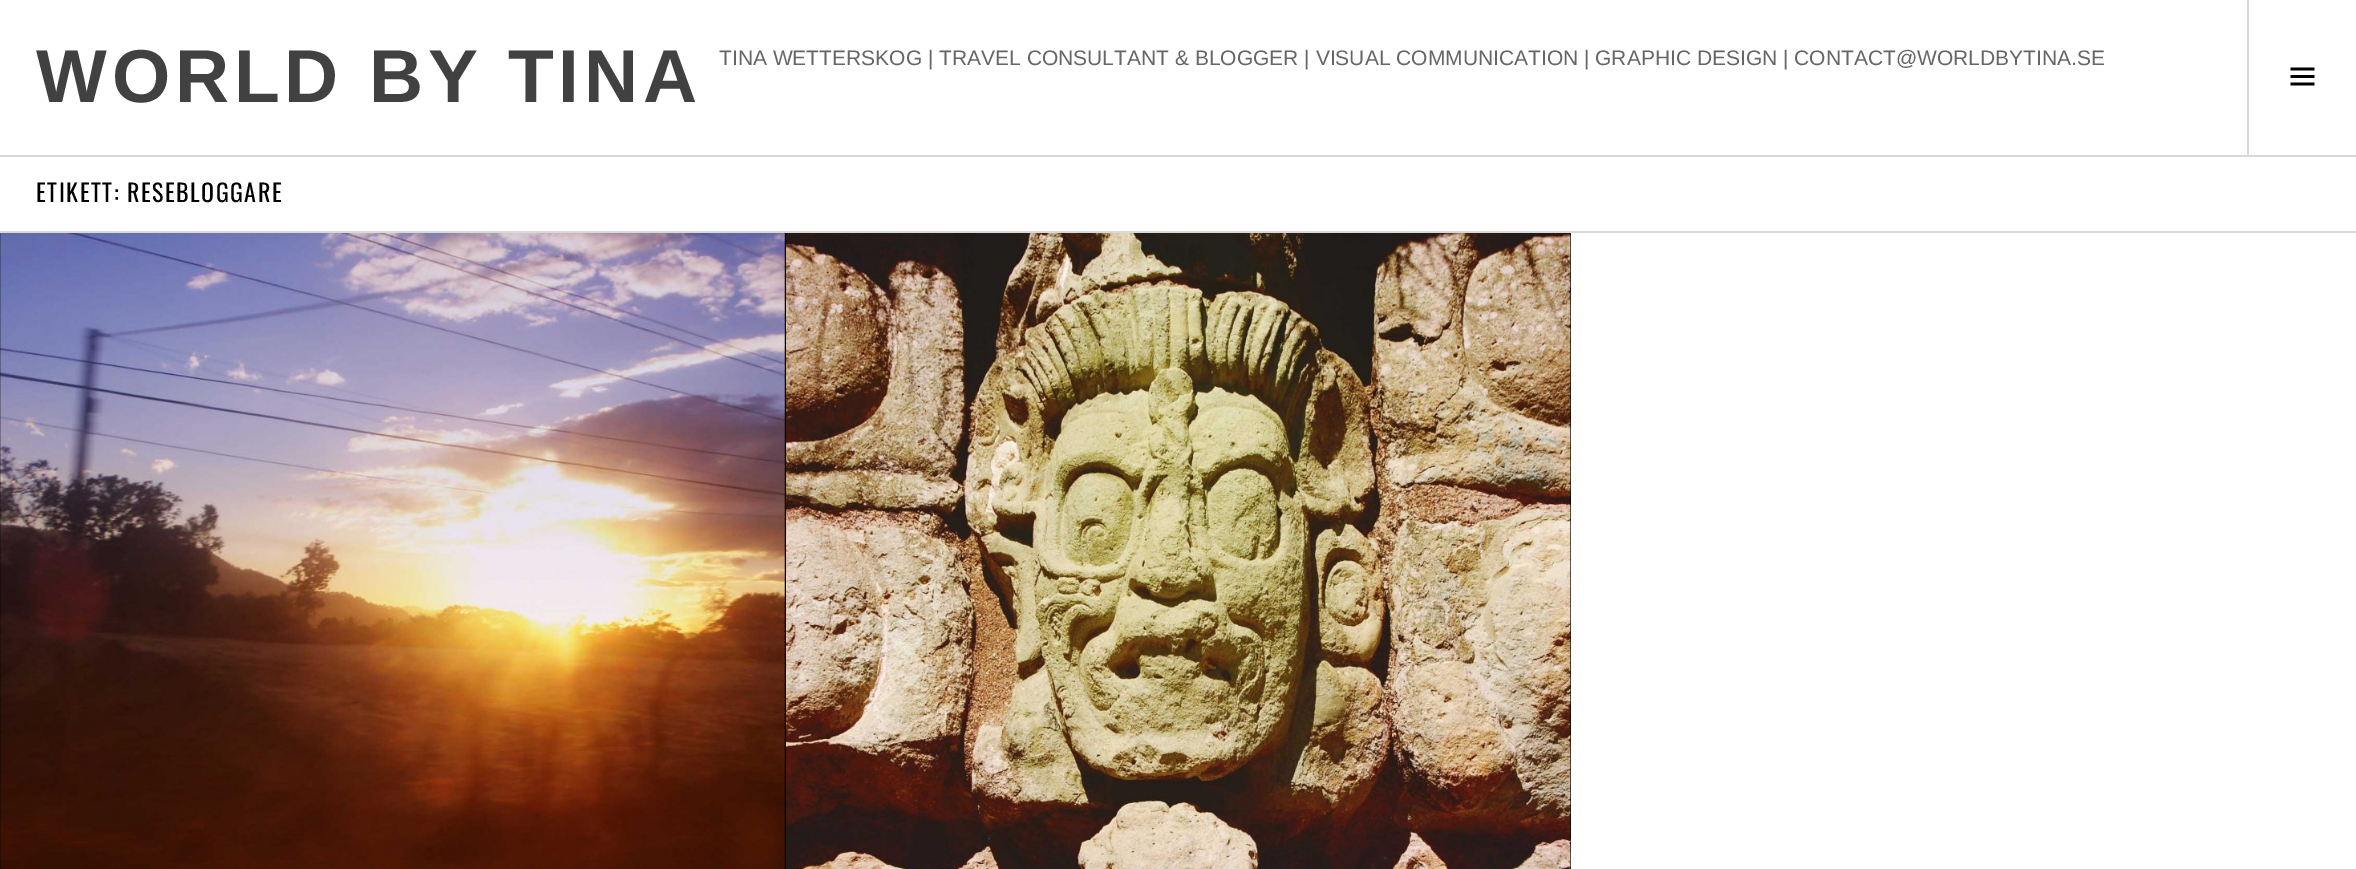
%!PS
<< /PageSize [2356 869] >> setpagedevice
/mt/moveto load def
/co { dup -16 bitshift 255 div exch dup -8 bitshift 255 and 255 div exch 255 and 255 div setrgbcolor } def
/fn { [ exch dup neg 0 0 3 -1 roll 0 0 ] selectfont } def
/tx { co fn moveto show } def
/bx { co rectfill } def
/im { 5 dict begin { /h /w /y /x /name } { exch def } forall
  gsave x y translate w h scale
  w h 8 [w 0 0 h 0 0] name (r) file false 3 colorimage grestore end } def
0 869 translate 1 -1 scale
4 setmiterlimit
0 0 2356 869 16#FFFFFF bx
0 155 2356 2 16#D9D9D9 bx
2247 0 2 155 16#D9D9D9 bx
(media/1.raw) 2290 67 25 19 im
0 231 2356 2 16#D9D9D9 bx
0 233 786 636 16#000000 bx
(media/2.raw) 0 233 785 636 im
1570 233 1 636 16#000000 bx
(media/3.raw) 786 233 785 636 im
/LiberationSans-Bold 75 fn
16#414141 co
36 102 mt 4.75 0 (WORLD BY TINA) ashow
(TINA WETTERSKOG | TRAVEL CONSULTANT & BLOGGER | VISUAL COMMUNICATION | GRAPHIC DESIGN | CONTACT@WORLDBYTINA.SE) 719 65 /LiberationSans-Regular 21 16#666666 tx
/Oswald-Regular 24 fn
16#000000 co
36 202 mt 1.5 0 (ETIKETT: RESEBLOGGARE) ashow
showpage
